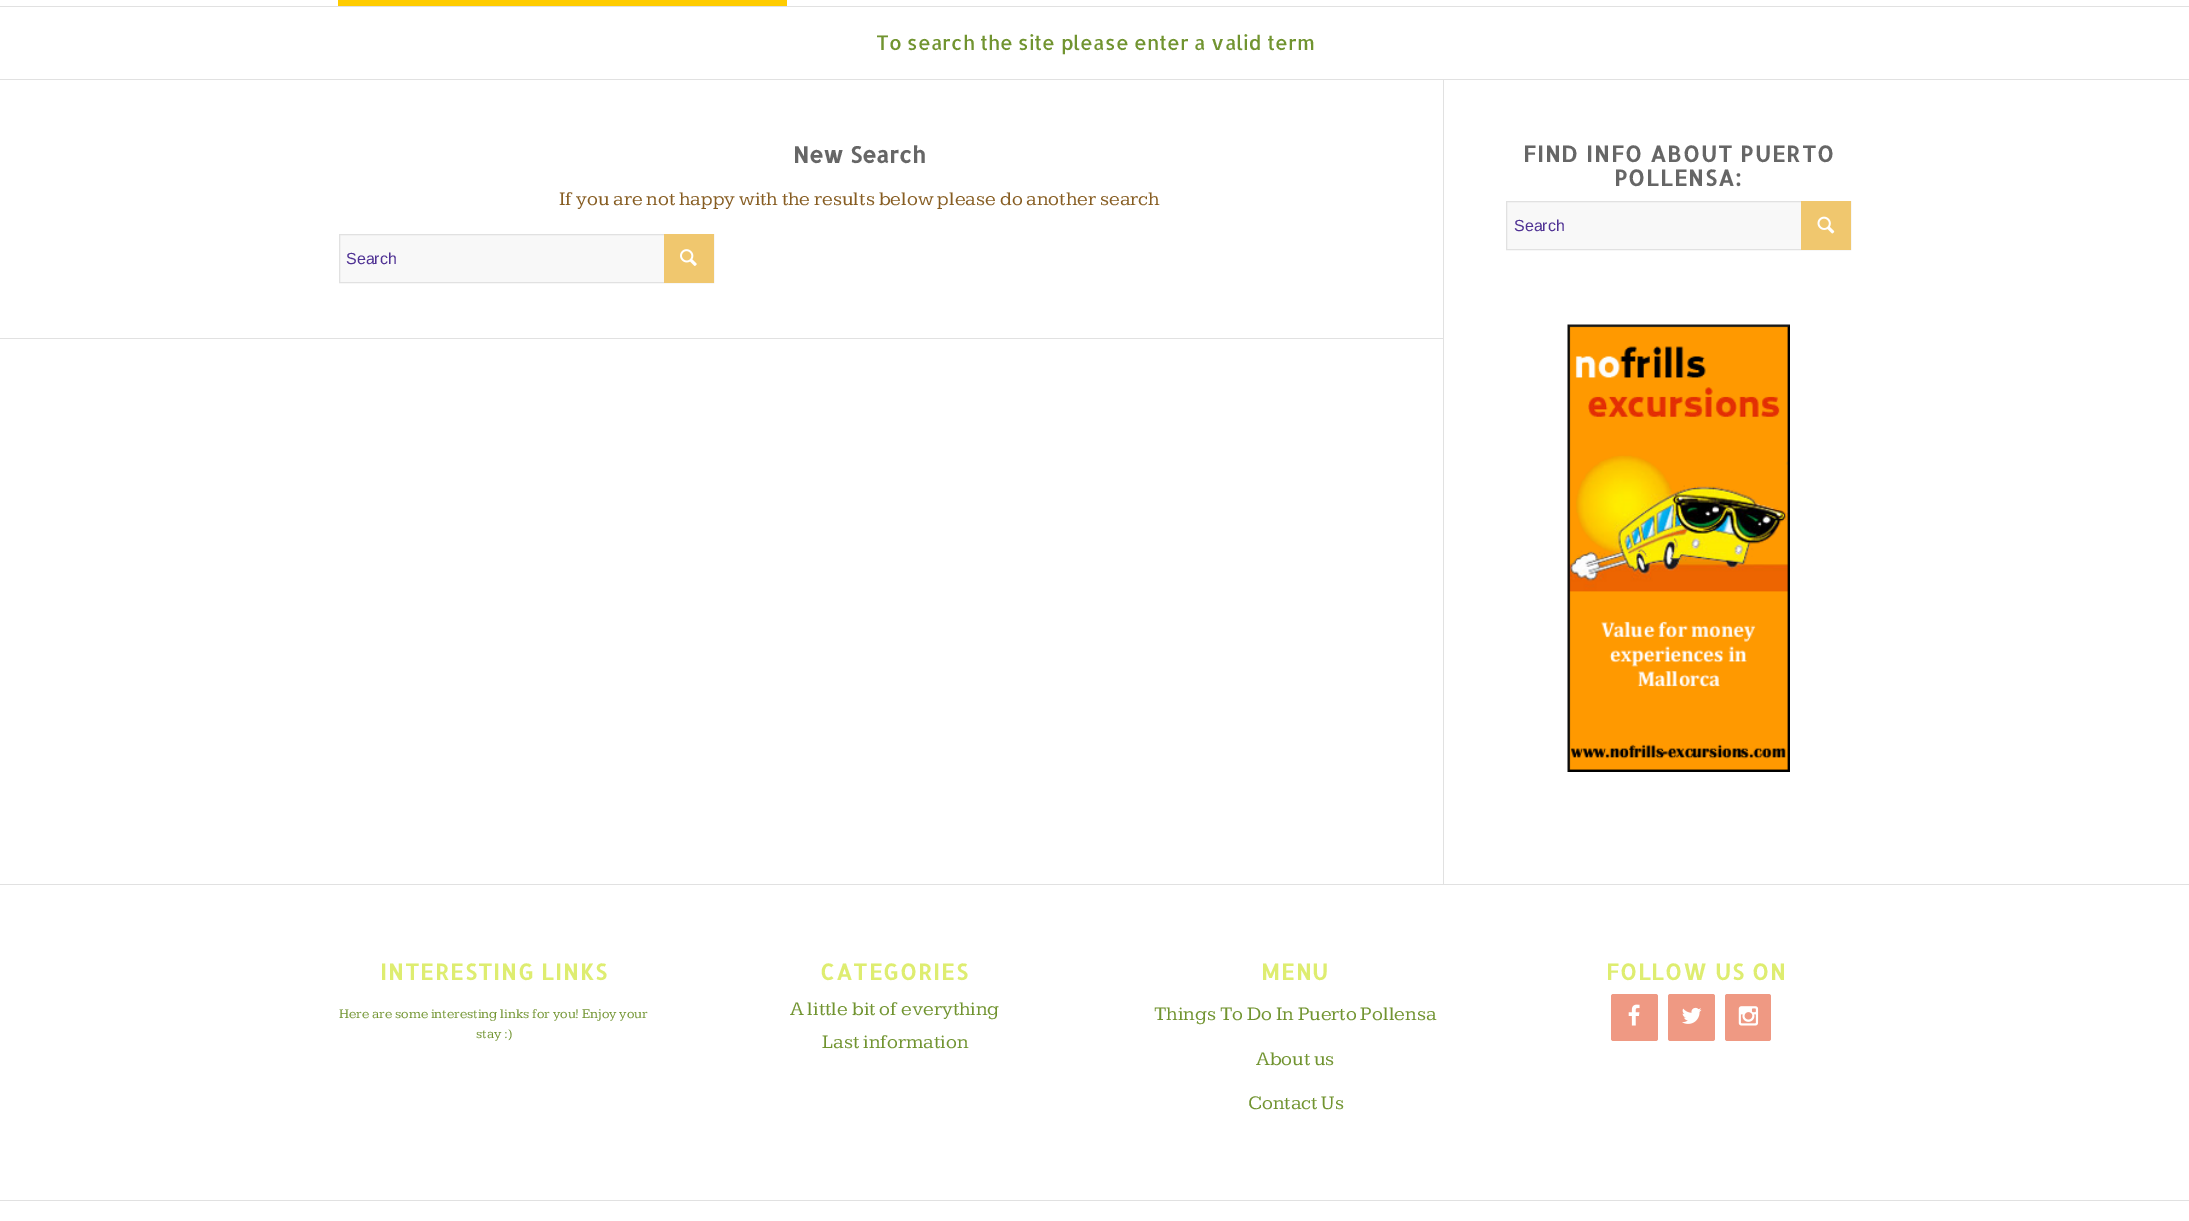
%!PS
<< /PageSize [2189 1221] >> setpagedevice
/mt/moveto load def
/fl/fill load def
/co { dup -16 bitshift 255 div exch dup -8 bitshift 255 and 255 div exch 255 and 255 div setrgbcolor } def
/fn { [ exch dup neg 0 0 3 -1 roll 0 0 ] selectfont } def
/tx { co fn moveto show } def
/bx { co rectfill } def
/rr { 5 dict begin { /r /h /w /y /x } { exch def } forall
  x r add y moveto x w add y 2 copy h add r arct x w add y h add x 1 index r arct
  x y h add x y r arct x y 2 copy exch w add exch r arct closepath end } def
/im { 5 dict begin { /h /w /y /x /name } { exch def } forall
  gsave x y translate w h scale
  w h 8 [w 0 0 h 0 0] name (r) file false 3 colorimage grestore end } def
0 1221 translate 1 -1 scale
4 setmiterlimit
0 0 2189 1221 16#FFFFFF bx
0 6 2189 1 16#E1E1E1 bx
338 0 449 6 16#FFCC00 bx
0 79 2189 1 16#E1E1E1 bx
340 235 324 47 16#F8F8F8 bx
16#E1E1E1 co
339.5 234.5 374 48 rectstroke
664 234 50 49 16#F0C76E bx
(media/1.raw) 680 249 17 17 im
0 338 1443 1 16#E1E1E1 bx
1443 80 1 804 16#E1E1E1 bx
1507 202 294 47 16#F8F8F8 bx
16#E1E1E1 co
1506.5 201.5 344 48 rectstroke
1801 201 50 49 16#F0C76E bx
(media/2.raw) 1817 216 18 18 im
(media/3.raw) 1567 324 223 448 im
0 884 2189 1 16#E1E1E1 bx
16#EF9983 co
1611 994 47 47 2.5 rr fl
(media/4.raw) 1628 1004 12 22 im
1668 994 47 47 2.5 rr fl
(media/5.raw) 1682 1007 20 17 im
1725 994 46 47 2.5 rr fl
(media/6.raw) 1738 1006 21 20 im
0 1200 2189 1 16#E1E1E1 bx
(To search the site please enter a valid term) 876 50 /Allerta-Regular 20 16#719430 tx
(New Search) 793 163 /Allerta-Bold 22.5 16#666666 tx
(If you are not happy with the results below please do another search) 559 205 /Kameron-Regular 20 16#875D22 tx
(Search) 346 264 /LiberationSans-Regular 16 16#4F3194 tx
/Allerta-Bold 22 fn
16#666666 co
1523 162 mt 1.25 0 (FIND INFO ABOUT PUERTO) ashow
1614 186 mt 1.25 0 (POLLENSA:) ashow
(Search) 1514 231 /LiberationSans-Regular 16 16#4F3194 tx
/Allerta-Bold 22 fn
16#DEED70 co
380 980 mt 1.25 0 (INTERESTING LINKS) ashow
(Here are some interesting links for you! Enjoy your) 339 1018 /Kameron-Regular 13.75 16#719430 tx
(stay :\)) 476 1038 /Kameron-Regular 13.75 16#719430 tx
/Allerta-Bold 22 fn
16#DEED70 co
820 980 mt 1.25 0 (CATEGORIES) ashow
(A little bit of everything) 790 1015 /Kameron-Regular 20 16#719430 tx
(Last information) 822 1048 /Kameron-Regular 20 16#719430 tx
/Allerta-Bold 22 fn
16#DEED70 co
1261 980 mt 1.25 0 (MENU) ashow
(Things To Do In Puerto Pollensa) 1154 1020 /Kameron-Regular 20 16#719430 tx
(About us) 1256 1065 /Kameron-Regular 20 16#719430 tx
(Contact Us) 1248 1109 /Kameron-Regular 20 16#719430 tx
/Allerta-Bold 22 fn
16#DEED70 co
1606 980 mt 1.25 0 (FOLLOW US ON) ashow
showpage
